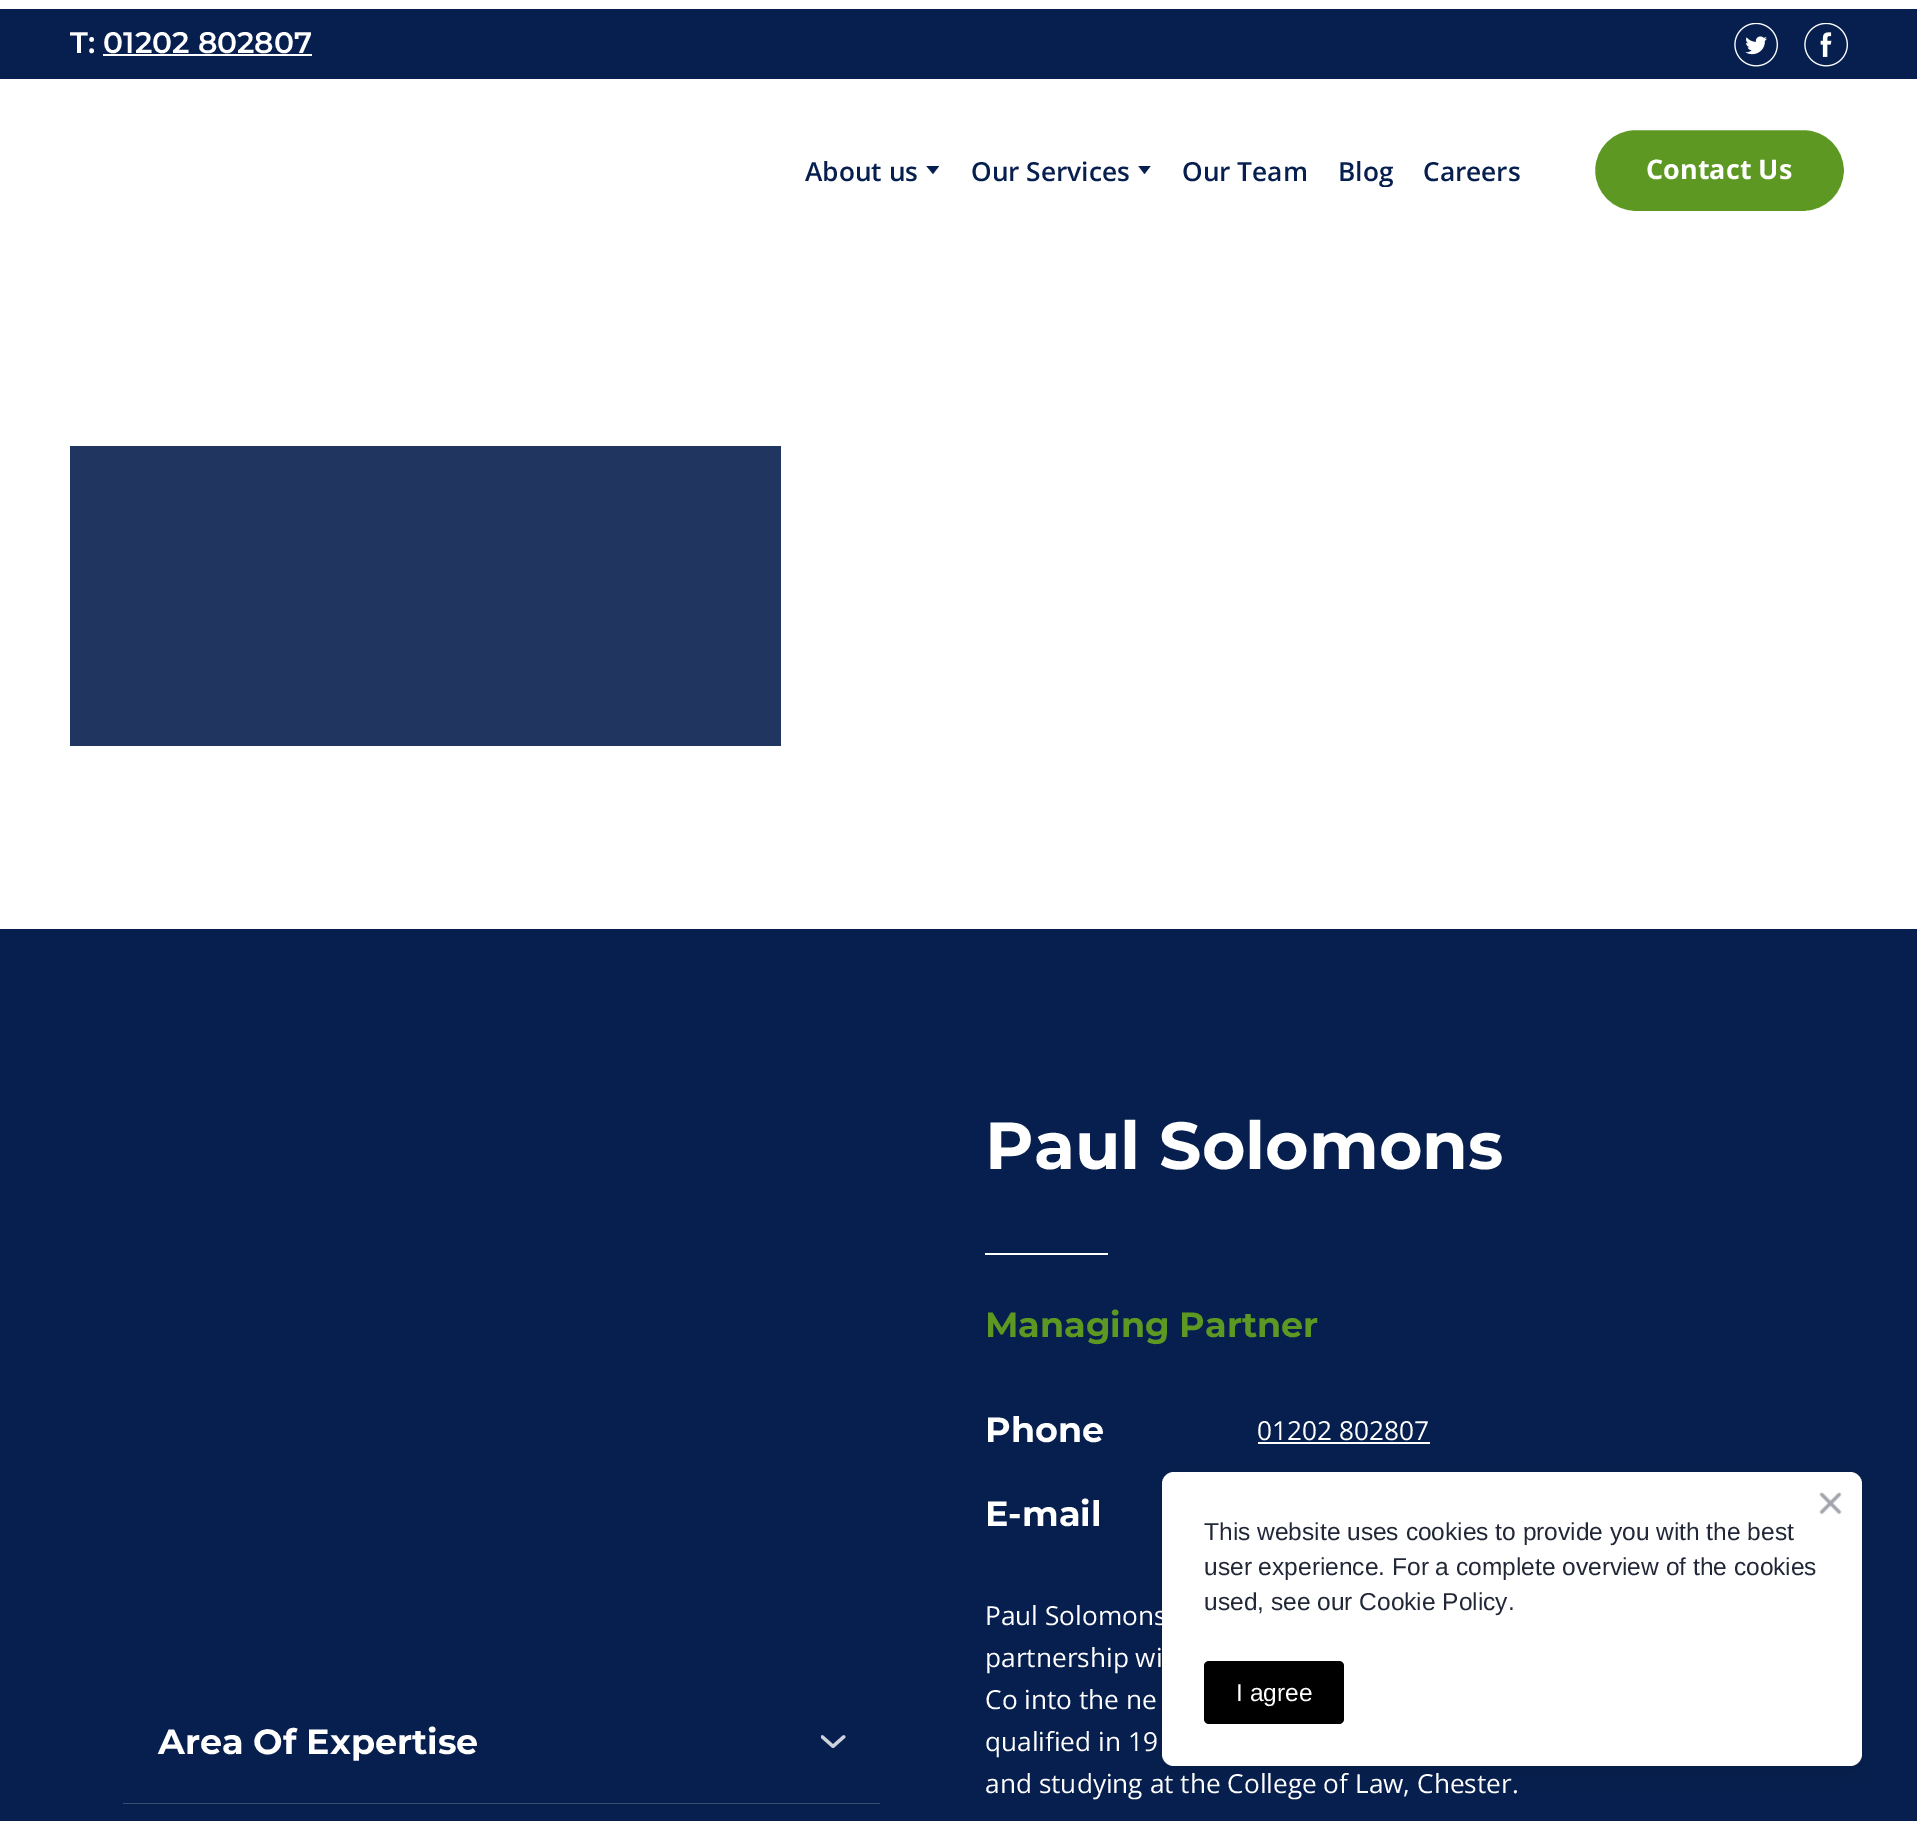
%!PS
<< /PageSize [1917 1821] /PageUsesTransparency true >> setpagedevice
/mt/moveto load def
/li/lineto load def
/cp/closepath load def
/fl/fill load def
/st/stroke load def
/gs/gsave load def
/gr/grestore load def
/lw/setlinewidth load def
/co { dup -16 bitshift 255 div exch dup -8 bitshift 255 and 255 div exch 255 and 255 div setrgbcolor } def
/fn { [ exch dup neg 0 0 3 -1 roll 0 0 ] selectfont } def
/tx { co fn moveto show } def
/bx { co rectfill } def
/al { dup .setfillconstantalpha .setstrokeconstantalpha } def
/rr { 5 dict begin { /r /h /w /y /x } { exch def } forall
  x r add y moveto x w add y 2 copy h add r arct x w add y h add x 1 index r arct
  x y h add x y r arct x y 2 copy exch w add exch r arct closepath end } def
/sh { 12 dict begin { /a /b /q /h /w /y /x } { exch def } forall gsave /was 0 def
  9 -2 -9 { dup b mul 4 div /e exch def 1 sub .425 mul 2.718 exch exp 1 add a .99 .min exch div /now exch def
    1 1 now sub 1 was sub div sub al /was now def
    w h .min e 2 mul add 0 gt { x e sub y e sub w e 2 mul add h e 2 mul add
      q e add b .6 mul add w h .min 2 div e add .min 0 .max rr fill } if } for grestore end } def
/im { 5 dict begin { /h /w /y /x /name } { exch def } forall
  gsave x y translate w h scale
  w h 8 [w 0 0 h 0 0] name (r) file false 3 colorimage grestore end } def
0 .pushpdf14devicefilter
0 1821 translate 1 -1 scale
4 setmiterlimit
0 0 1917 1821 16#FFFFFF bx
0 9 1917 70 16#071F4E bx
103 54 209 2 16#FFFFFF bx
(media/1.raw) 1734 23 44 44 im
(media/2.raw) 1804 23 44 44 im
gs
924 166 16 9 rectclip
16#071F4E co
933 174 mt 939.5 165.5 li 926 165.5 li cp fl
gr
gs
1136 166 16 9 rectclip
16#071F4E co
1144.5 174 mt 1151 165.5 li 1138 165.5 li cp fl
gr
16#5D9922 co
1593 128 253 85 42.5 rr gs fl gr
16#FFFFFF co
4 lw
st
70 446 711 300 16#203560 bx
0 929 1917 892 16#071F4E bx
(media/3.raw) 821 1735 25 13 im
123 1803 757 1 16#394C71 bx
985 1253 123 2 16#FFFFFF bx
1258 1442 172 2 16#FFFFFF bx
16#000000 co
1162 1479 700 294 12 12 .1 sh
16#FFFFFF co
1162 1472 700 294 12 rr fl
(media/4.raw) 1819 1492 23 23 im
16#000000 co
1204 1661 140 63 5 rr fl
(T: 01202 802807) 70 53 /Montserrat-SemiBold 29.75 16#FFFFFF tx
(About us) 805 181 /OpenSans-SemiBold 26.25 16#071F4E tx
(Our Services) 971 181 /OpenSans-SemiBold 26.25 16#071F4E tx
(Our Team) 1182 181 /OpenSans-SemiBold 26.25 16#071F4E tx
gs
1337 152 56 35 rectclip
(Blog) 1338 181 /OpenSans-SemiBold 26.25 16#071F4E tx
gr
(Careers) 1423 181 /OpenSans-SemiBold 26.25 16#071F4E tx
(Contact Us) 1646 179 /OpenSans-Bold 27 16#FFFFFF tx
(Area Of Expertise) 158 1754 /Montserrat-Bold 35 16#FFFFFF tx
(Paul Solomons) 985 1169 /Montserrat-Bold 66.5 16#FFFFFF tx
(Managing Partner) 985 1337 /Montserrat-Bold 35 16#5D9922 tx
(Phone) 985 1442 /Montserrat-Bold 35 16#FFFFFF tx
(01202 802807) 1257 1440 /OpenSans-Regular 26.25 16#FFFFFF tx
(E-mail) 985 1526 /Montserrat-Bold 35 16#FFFFFF tx
(Paul Solomons) 985 1625 /OpenSans-Regular 26.25 16#FFFFFF tx
(partnership wi) 985 1667 /OpenSans-Regular 26.25 16#FFFFFF tx
(Co into the ne) 985 1709 /OpenSans-Regular 26.25 16#FFFFFF tx
(qualified in 19) 985 1751 /OpenSans-Regular 26.25 16#FFFFFF tx
(and studying at the College of Law, Chester.) 985 1793 /OpenSans-Regular 26.25 16#FFFFFF tx
(This website uses cookies to provide you with the best) 1204 1540 /LiberationSans-Regular 24.5 16#212736 tx
(user experience. For a complete overview of the cookies) 1204 1575 /LiberationSans-Regular 24.5 16#212736 tx
(used, see our Cookie Policy.) 1204 1610 /LiberationSans-Regular 24.5 16#212736 tx
(I agree) 1236 1701 /LiberationSans-Regular 24.5 16#FFFFFF tx
.poppdf14devicefilter showpage
